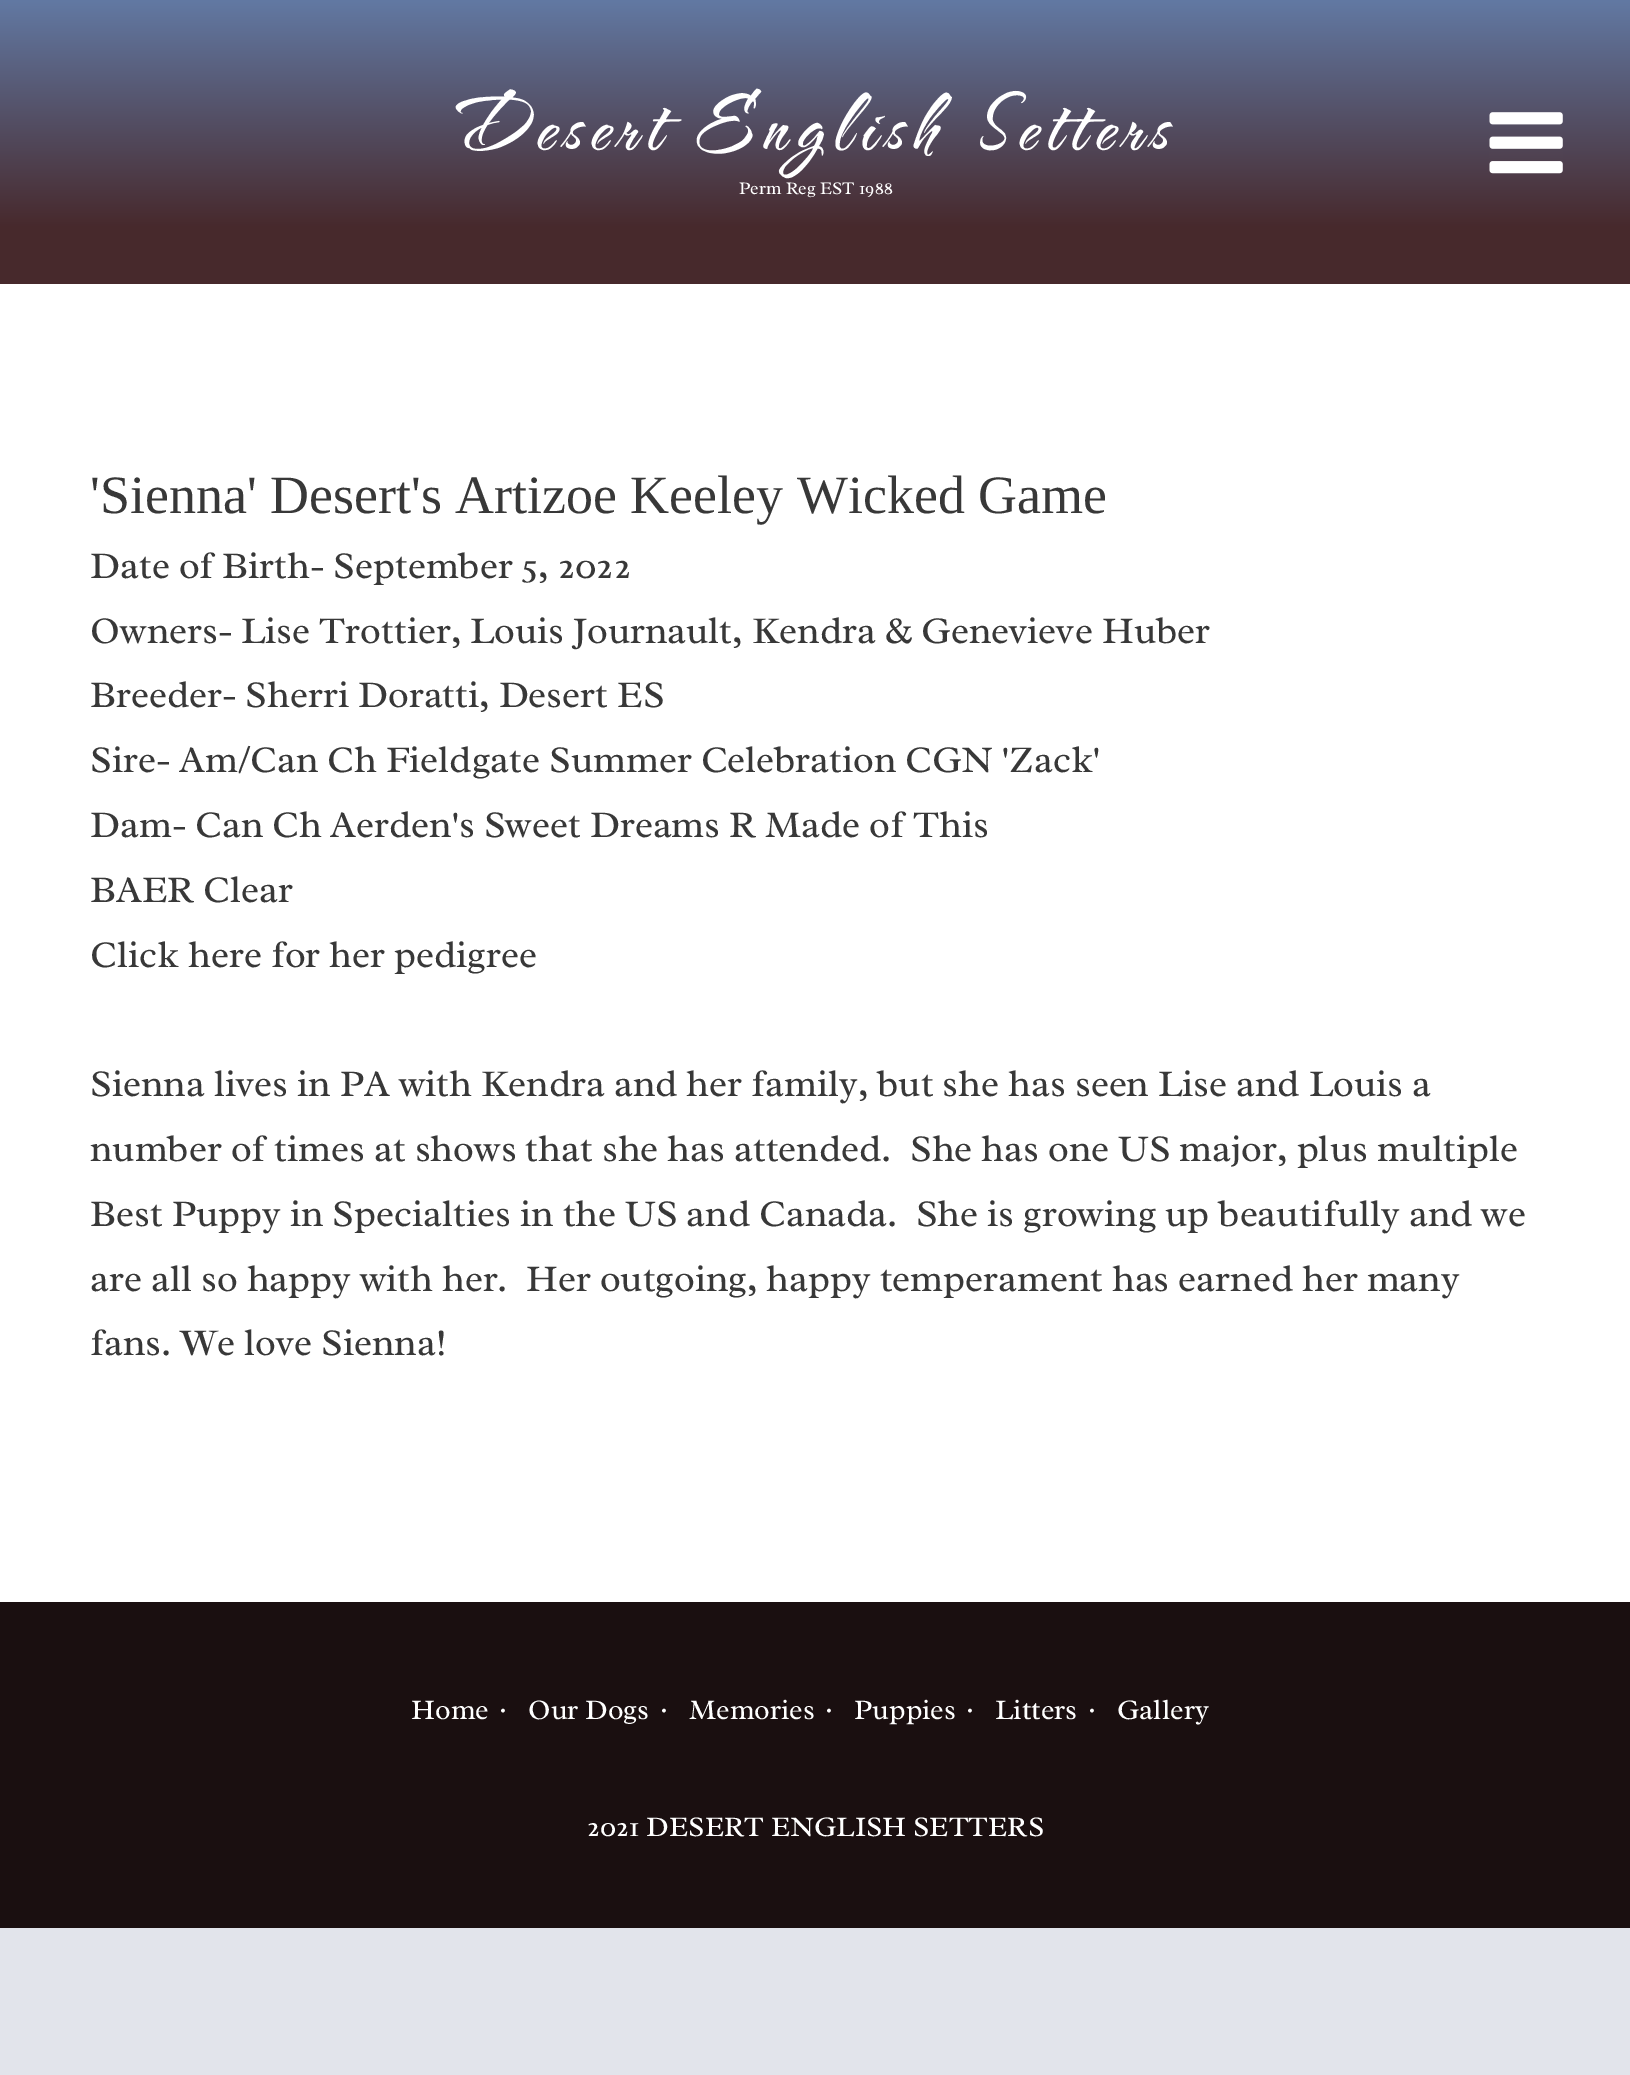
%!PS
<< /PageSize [1630 2075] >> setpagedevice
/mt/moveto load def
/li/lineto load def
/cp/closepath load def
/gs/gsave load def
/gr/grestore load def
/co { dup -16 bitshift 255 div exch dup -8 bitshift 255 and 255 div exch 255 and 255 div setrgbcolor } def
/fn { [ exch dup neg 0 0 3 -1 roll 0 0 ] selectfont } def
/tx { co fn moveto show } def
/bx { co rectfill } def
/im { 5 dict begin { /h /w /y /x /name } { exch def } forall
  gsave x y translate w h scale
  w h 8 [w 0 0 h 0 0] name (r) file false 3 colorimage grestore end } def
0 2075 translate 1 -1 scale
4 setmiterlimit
0 0 1630 2075 16#E2E4EB bx
gs 0 0 mt 1630 0 li 1630 284 li 0 284 li cp clip newpath
<< /ShadingType 2 /ColorSpace /DeviceRGB /Coords [816 0 816 284] /Extend [true true] /Function << /FunctionType 3 /Domain [0 1] /Functions [<< /FunctionType 2 /Domain [0 1] /C0 [.384 .475 .639] /C1 [.278 .161 .173] /N 1 >> << /FunctionType 2 /Domain [0 1] /C0 [.278 .161 .173] /C1 [.278 .161 .173] /N 1 >>] /Bounds [.8] /Encode [0 1 0 1] >> >> shfill gr
(media/1.raw) 1489 112 74 62 im
0 284 1630 1318 16#FFFFFF bx
0 1602 1630 326 16#1A0F10 bx
/TheNautigal-Bold 90 fn
16#FFFFFF co
454 149 mt 9 0 (Desert English Setters) ashow
(Perm Reg EST 1988) 739 194 /Radley-Regular 18 16#FFFFFF tx
('Sienna' Desert's Artizoe Keeley Wicked Game) 90 513 /LiberationSerif-Regular 54 16#383838 tx
(Date of Birth- September 5, 2022) 90 578 /Radley-Regular 38.25 16#383838 tx
(Owners- Lise Trottier, Louis Journault, Kendra & Genevieve Huber) 90 643 /Radley-Regular 38.25 16#383838 tx
(Breeder- Sherri Doratti, Desert ES) 90 707 /Radley-Regular 38.25 16#383838 tx
(Sire- Am/Can Ch Fieldgate Summer Celebration CGN 'Zack') 90 772 /Radley-Regular 38.25 16#383838 tx
(Dam- Can Ch Aerden's Sweet Dreams R Made of This) 90 837 /Radley-Regular 38.25 16#383838 tx
(BAER Clear) 90 902 /Radley-Regular 38.25 16#383838 tx
(Click here for her pedigree) 90 967 /Radley-Regular 38.25 16#383838 tx
(Sienna lives in PA with Kendra and her family, but she has seen Lise and Louis a) 90 1096 /Radley-Regular 38.25 16#383838 tx
(number of times at shows that she has attended.  She has one US major, plus multiple) 90 1161 /Radley-Regular 38.25 16#383838 tx
(Best Puppy in Specialties in the US and Canada.  She is growing up beautifully and we) 90 1226 /Radley-Regular 38.25 16#383838 tx
(are all so happy with her.  Her outgoing, happy temperament has earned her many) 90 1291 /Radley-Regular 38.25 16#383838 tx
(fans. We love Sienna!) 90 1355 /Radley-Regular 38.25 16#383838 tx
(Home) 411 1719 /Radley-Regular 28.75 16#FFFFFF tx
(·) 500 1719 /Radley-Bold 22 16#FFFFFF tx
(Our Dogs) 528 1719 /Radley-Regular 28.75 16#FFFFFF tx
(·) 661 1719 /Radley-Bold 22 16#FFFFFF tx
(Memories) 689 1719 /Radley-Regular 28.75 16#FFFFFF tx
(·) 826 1719 /Radley-Bold 22 16#FFFFFF tx
(Puppies) 854 1719 /Radley-Regular 28.75 16#FFFFFF tx
(·) 967 1719 /Radley-Bold 22 16#FFFFFF tx
(Litters) 995 1719 /Radley-Regular 28.75 16#FFFFFF tx
(·) 1089 1719 /Radley-Bold 22 16#FFFFFF tx
(Gallery) 1117 1719 /Radley-Regular 28.75 16#FFFFFF tx
(2021 DESERT ENGLISH SETTERS) 587 1836 /Radley-Regular 28.75 16#FFFFFF tx
showpage
